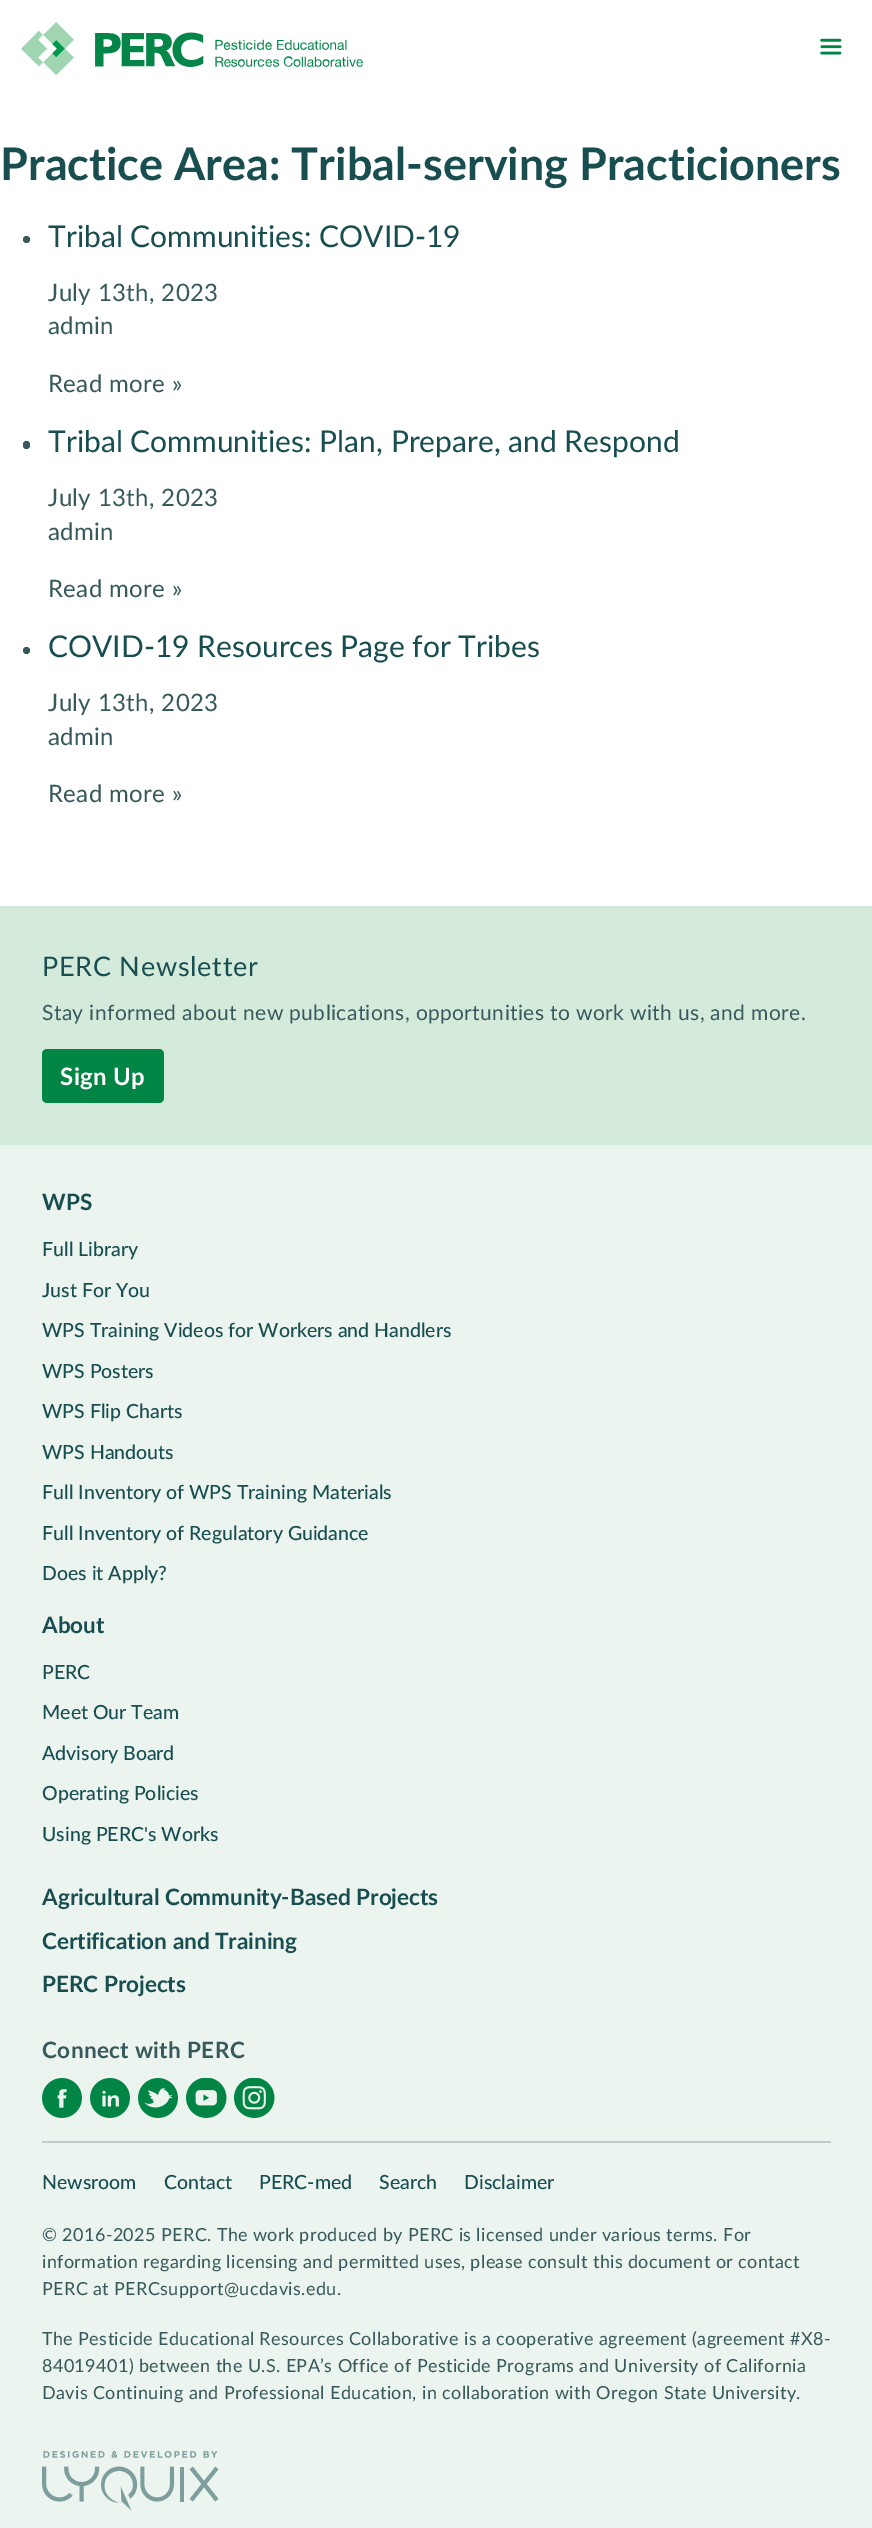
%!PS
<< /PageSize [872 2528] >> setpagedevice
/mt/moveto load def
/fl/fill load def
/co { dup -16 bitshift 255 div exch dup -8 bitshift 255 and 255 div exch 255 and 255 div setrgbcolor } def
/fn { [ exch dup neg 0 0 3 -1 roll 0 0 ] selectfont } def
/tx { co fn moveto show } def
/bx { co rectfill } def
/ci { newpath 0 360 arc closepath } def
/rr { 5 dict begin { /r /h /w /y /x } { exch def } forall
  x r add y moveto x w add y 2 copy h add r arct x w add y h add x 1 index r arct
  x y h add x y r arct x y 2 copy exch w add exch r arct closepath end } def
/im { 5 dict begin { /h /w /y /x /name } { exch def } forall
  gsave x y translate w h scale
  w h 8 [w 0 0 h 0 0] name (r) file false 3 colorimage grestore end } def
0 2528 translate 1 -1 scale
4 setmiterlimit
0 0 872 2528 16#FFFFFF bx
(media/1.raw) 21 22 342 54 im
(media/2.raw) 820 38 22 17 im
16#37595C co
26.5 239.5 3.5 ci fl
23 441 7 8 3.5 rr fl
26.5 650.5 3.5 ci fl
0 1145 872 1383 16#EBF4EE bx
0 906 872 239 16#D4EBDC bx
16#008545 co
42 1049 122 54 5 rr fl
(media/3.raw) 42 2078 40 40 im
(media/4.raw) 90 2078 40 40 im
(media/5.raw) 138 2078 40 40 im
(media/6.raw) 186 2078 41 40 im
(media/7.raw) 234 2078 41 40 im
42 2141 789 2 16#BECDCA bx
(media/8.raw) 42 2451 177 60 im
(Practice Area: Tribal-serving Practicioners) 0 180 /Lato-Bold 45 16#194E51 tx
(Tribal Communities: COVID-19) 48 247 /Lato-Regular 30 16#194E51 tx
/Lato-Regular 24 fn
16#37595C co
48 301 mt .38 0 (July 13th, 2023) ashow
48 334 mt .38 0 (admin) ashow
48 392 mt .38 0 (Read more ») ashow
(Tribal Communities: Plan, Prepare, and Respond) 48 452 /Lato-Regular 30 16#194E51 tx
/Lato-Regular 24 fn
16#37595C co
48 506 mt .38 0 (July 13th, 2023) ashow
48 540 mt .38 0 (admin) ashow
48 597 mt .38 0 (Read more ») ashow
(COVID-19 Resources Page for Tribes) 48 657 /Lato-Regular 30 16#194E51 tx
/Lato-Regular 24 fn
16#37595C co
48 711 mt .38 0 (July 13th, 2023) ashow
48 745 mt .38 0 (admin) ashow
48 802 mt .38 0 (Read more ») ashow
/Lato-Regular 27 fn
16#194E51 co
42 976 mt .75 0 (PERC Newsletter) ashow
/Lato-Regular 21 fn
16#37595C co
42 1020 mt .38 0 (Stay informed about new publications, opportunities to work with us, and more.) ashow
/Lato-Bold 24 fn
16#FFFFFF co
60 1085 mt .38 0 (Sign Up) ashow
(WPS) 42 1210 /Lato-Bold 22.5 16#194E51 tx
(Full Library) 42 1256 /Lato-Medium 19.5 16#194E51 tx
(Just For You) 42 1297 /Lato-Medium 19.5 16#194E51 tx
(WPS Training Videos for Workers and Handlers) 42 1337 /Lato-Medium 19.5 16#194E51 tx
(WPS Posters) 42 1378 /Lato-Medium 19.5 16#194E51 tx
(WPS Flip Charts) 42 1418 /Lato-Medium 19.5 16#194E51 tx
(WPS Handouts) 42 1459 /Lato-Medium 19.5 16#194E51 tx
(Full Inventory of WPS Training Materials) 42 1499 /Lato-Medium 19.5 16#194E51 tx
(Full Inventory of Regulatory Guidance) 42 1540 /Lato-Medium 19.5 16#194E51 tx
(Does it Apply?) 42 1580 /Lato-Medium 19.5 16#194E51 tx
(About) 42 1633 /Lato-Bold 22.5 16#194E51 tx
(PERC) 42 1679 /Lato-Medium 19.5 16#194E51 tx
(Meet Our Team) 42 1719 /Lato-Medium 19.5 16#194E51 tx
(Advisory Board) 42 1760 /Lato-Medium 19.5 16#194E51 tx
(Operating Policies) 42 1800 /Lato-Medium 19.5 16#194E51 tx
(Using PERC's Works) 42 1841 /Lato-Medium 19.5 16#194E51 tx
(Agricultural Community-Based Projects) 42 1905 /Lato-Bold 22.5 16#194E51 tx
(Certification and Training) 42 1949 /Lato-Bold 22.5 16#194E51 tx
(PERC Projects) 42 1992 /Lato-Bold 22.5 16#194E51 tx
16#37595C co
42 2058 mt .38 0 (Connect with PERC) ashow
(Newsroom) 42 2189 /Lato-Medium 19.5 16#194E51 tx
(Contact) 164 2189 /Lato-Medium 19.5 16#194E51 tx
(PERC-med) 259 2189 /Lato-Medium 19.5 16#194E51 tx
(Search) 379 2189 /Lato-Medium 19.5 16#194E51 tx
(Disclaimer) 464 2189 /Lato-Medium 19.5 16#194E51 tx
/Lato-Regular 18 fn
16#37595C co
42 2241 mt .38 0 (© 2016-2025 PERC. The work produced by PERC is licensed under various terms. For) ashow
42 2268 mt .38 0 (information regarding licensing and permitted uses, please consult this document or contact) ashow
42 2295 mt .38 0 (PERC at PERCsupport@ucdavis.edu.) ashow
42 2345 mt .38 0 (The Pesticide Educational Resources Collaborative is a cooperative agreement \(agreement #X8-) ashow
42 2372 mt .38 0 (84019401\) between the U.S. EPA’s Office of Pesticide Programs and University of California) ashow
42 2399 mt .38 0 (Davis Continuing and Professional Education, in collaboration with Oregon State University.) ashow
showpage
